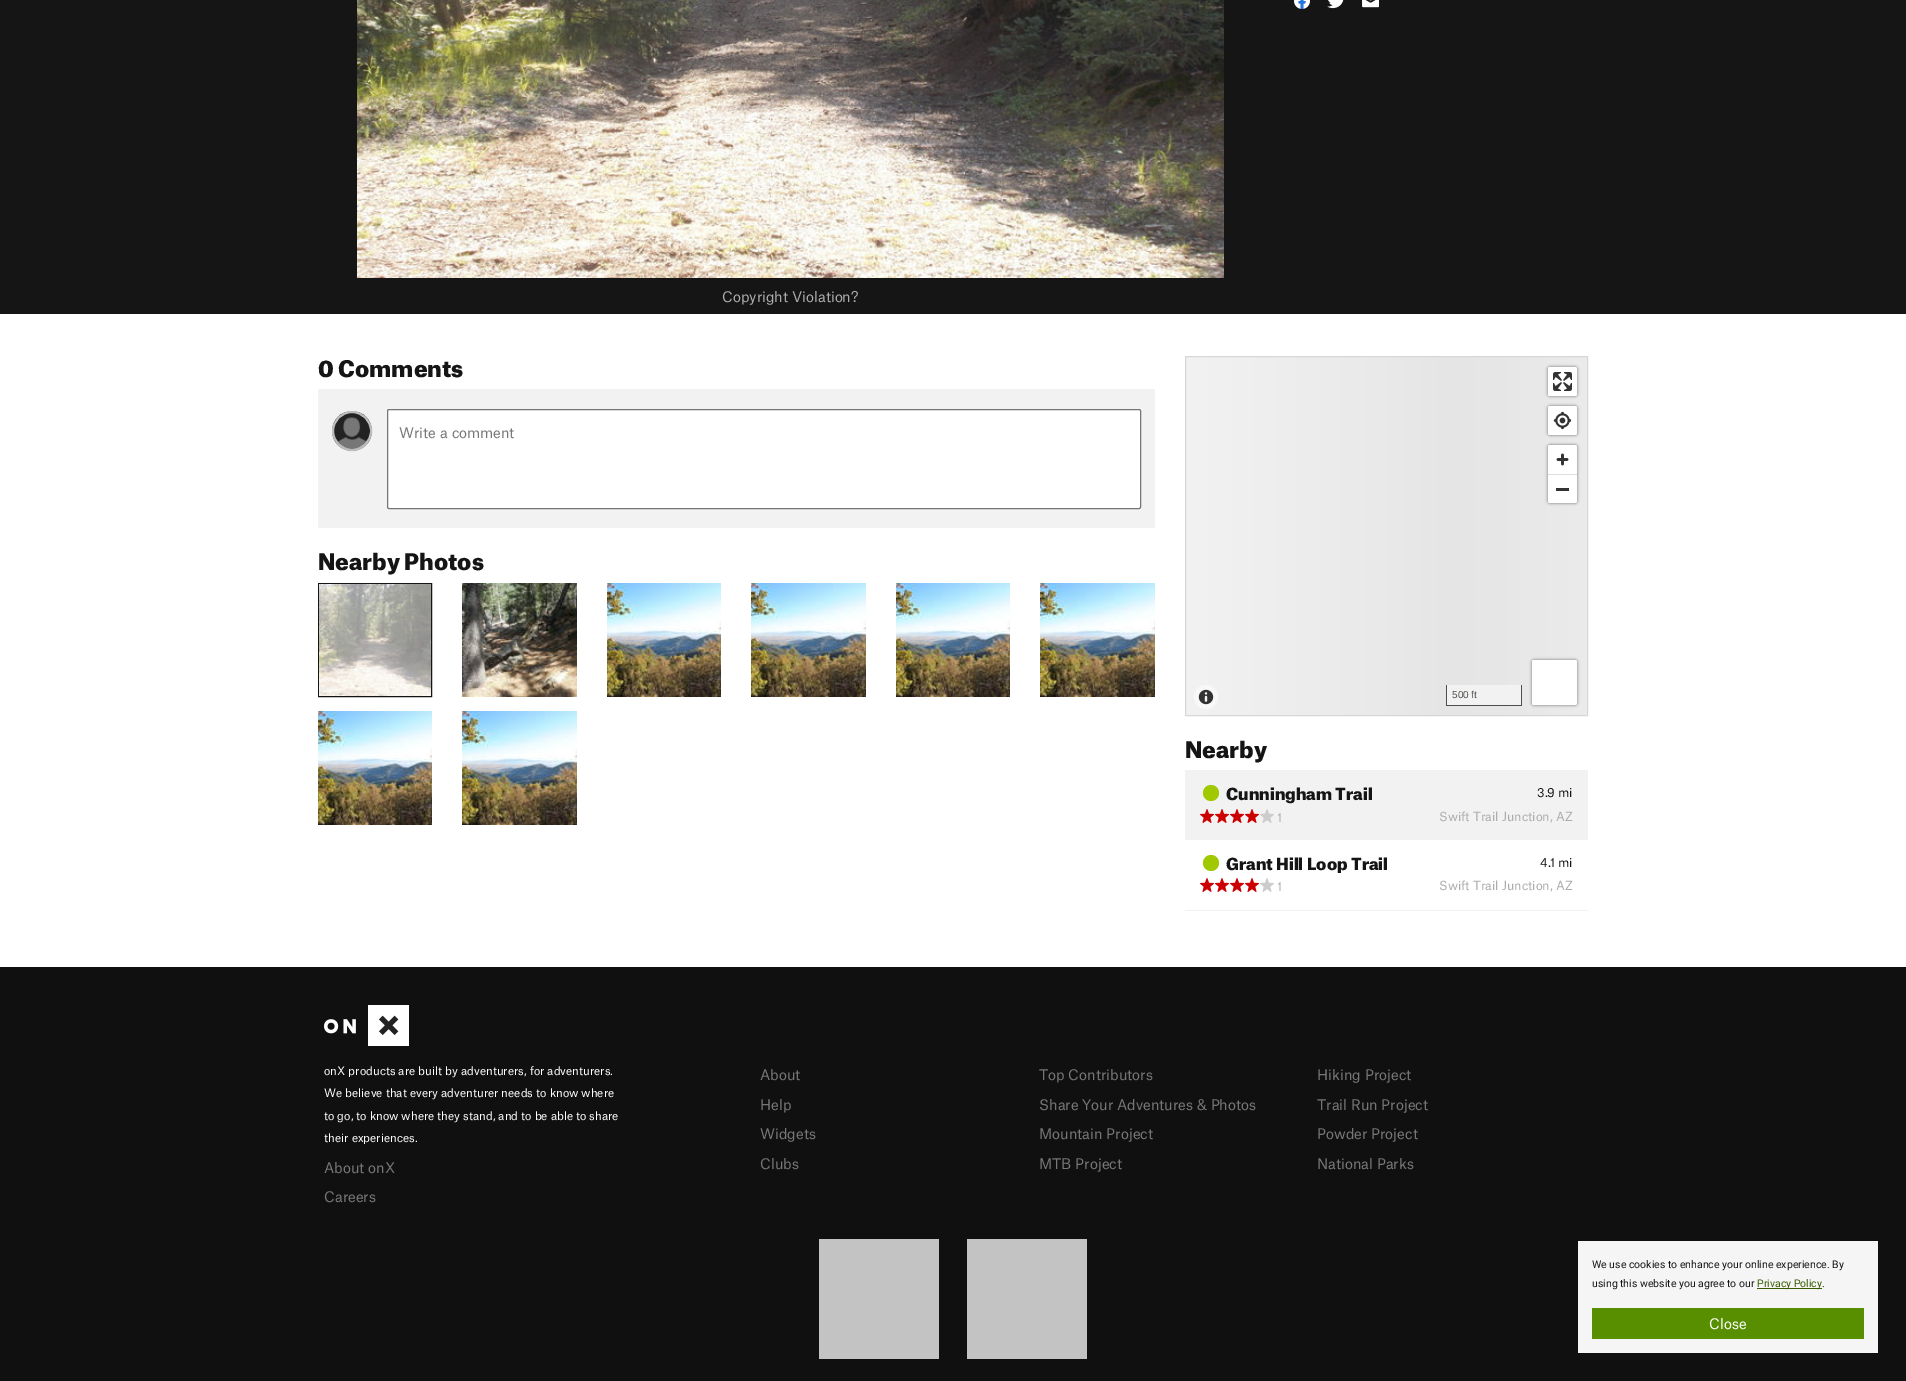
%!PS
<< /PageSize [1906 1381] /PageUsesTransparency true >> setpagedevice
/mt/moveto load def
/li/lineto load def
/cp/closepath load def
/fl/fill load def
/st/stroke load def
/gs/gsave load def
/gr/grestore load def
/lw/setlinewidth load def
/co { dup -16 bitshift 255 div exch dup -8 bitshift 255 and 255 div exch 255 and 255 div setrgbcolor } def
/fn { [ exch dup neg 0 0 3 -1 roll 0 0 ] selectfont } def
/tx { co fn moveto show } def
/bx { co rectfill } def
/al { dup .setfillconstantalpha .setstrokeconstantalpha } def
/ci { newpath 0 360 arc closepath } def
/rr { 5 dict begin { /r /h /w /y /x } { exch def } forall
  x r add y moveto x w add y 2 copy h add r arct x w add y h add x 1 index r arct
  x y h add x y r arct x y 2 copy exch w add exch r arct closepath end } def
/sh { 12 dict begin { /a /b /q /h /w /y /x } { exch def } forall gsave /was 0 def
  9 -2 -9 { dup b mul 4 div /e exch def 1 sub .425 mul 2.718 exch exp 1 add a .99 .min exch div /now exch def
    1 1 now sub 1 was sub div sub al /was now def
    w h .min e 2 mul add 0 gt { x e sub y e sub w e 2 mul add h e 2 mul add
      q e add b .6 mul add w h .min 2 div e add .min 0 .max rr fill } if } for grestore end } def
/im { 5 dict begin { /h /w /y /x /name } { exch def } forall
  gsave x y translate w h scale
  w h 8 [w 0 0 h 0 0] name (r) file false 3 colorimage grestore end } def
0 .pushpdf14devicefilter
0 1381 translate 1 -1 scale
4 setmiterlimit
0 0 1906 1381 16#FFFFFF bx
0 0 1906 314 16#151515 bx
(media/1.raw) 1294 0 16 9 im
(media/2.raw) 1327 0 17 9 im
(media/3.raw) 1362 0 17 8 im
(media/4.raw) 357 0 867 278 im
318 389 837 139 16#F2F2F2 bx
(media/5.raw) 332 411 40 40 im
16#BDBDBD co
2 lw
352 431 19 ci st
16#FFFFFF co
387.5 409.5 753 99 1.5 rr gs fl gr
16#767676 co
1 lw
st
16#151515 co
318.5 583.5 113 113 rectstroke
(media/6.raw) 319 584 112 112 im
(media/7.raw) 462 583 115 114 im
(media/8.raw) 607 583 114 114 im
(media/9.raw) 751 583 115 114 im
(media/10.raw) 896 583 114 114 im
(media/11.raw) 1040 583 115 114 im
(media/10.raw) 318 711 114 114 im
(media/9.raw) 462 711 115 114 im
gs 1186 357 mt 1587 357 li 1587 715 li 1186 715 li cp clip newpath
<< /ShadingType 2 /ColorSpace /DeviceRGB /Coords [1186 536 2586 536] /Extend [true true] /Function << /FunctionType 3 /Domain [0 1] /Functions [<< /FunctionType 2 /Domain [0 1] /C0 [.949 .949 .949] /C1 [.898 .898 .898] /N 1 >> << /FunctionType 2 /Domain [0 1] /C0 [.898 .898 .898] /C1 [.949 .949 .949] /N 1 >> << /FunctionType 2 /Domain [0 1] /C0 [.949 .949 .949] /C1 [.949 .949 .949] /N 1 >>] /Bounds [.2 .4] /Encode [0 1 0 1 0 1] >> >> shfill gr
gs 1447 685 mt 1521 685 li 1521 705 li 1447 705 li cp clip newpath
<< /ShadingType 2 /ColorSpace /DeviceRGB /Coords [1186 536 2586 536] /Extend [true true] /Function << /FunctionType 3 /Domain [0 1] /Functions [<< /FunctionType 2 /Domain [0 1] /C0 [.976 .976 .976] /C1 [.949 .949 .949] /N 1 >> << /FunctionType 2 /Domain [0 1] /C0 [.949 .949 .949] /C1 [.976 .976 .976] /N 1 >> << /FunctionType 2 /Domain [0 1] /C0 [.976 .976 .976] /C1 [.976 .976 .976] /N 1 >>] /Bounds [.2 .4] /Encode [0 1 0 1 0 1] >> >> shfill gr
16#D7D7D7 co
1185.5 356.5 402 359 rectstroke
16#F8F8F8 co
1206 697 12 ci fl
(media/12.raw) 1198 689 16 16 im
16#000000 co
1548 367 29 29 2 1.5 .5 sh
16#FFFFFF co
1548 367 29 29 2 rr fl
(media/13.raw) 1553 372 19 19 im
16#000000 co
1548 406 29 29 2 1.5 .5 sh
16#FFFFFF co
1548 406 29 29 2 rr fl
(media/14.raw) 1553 411 19 19 im
16#000000 co
1548 445 29 58 2 1.5 .5 sh
16#FFFFFF co
1548 445 29 58 2 rr fl
(media/15.raw) 1556 453 13 13 im
1548 474 29 1 16#DDDDDD bx
1556 488 13 3 16#333333 bx
1521 685 1 21 16#4E4D49 bx
1446 705 76 1 16#4E4D49 bx
1446 685 1 21 16#4E4D49 bx
16#000000 co
1532 660 45 45 2 1.5 .5 sh
16#FFFFFF co
1532 660 45 45 2 rr fl
1185 910 403 1 16#F2F2F2 bx
1185 770 403 70 16#F2F2F2 bx
16#A1C900 co
1211 793 8 ci fl
(media/16.raw) 1200 809 14 14 im
(media/16.raw) 1215 809 14 14 im
(media/16.raw) 1230 809 14 14 im
(media/16.raw) 1245 809 14 14 im
(media/17.raw) 1260 809 14 14 im
1211 863 8 ci fl
(media/18.raw) 1200 878 14 14 im
(media/18.raw) 1215 878 14 14 im
(media/18.raw) 1230 878 14 14 im
(media/18.raw) 1245 878 14 14 im
(media/19.raw) 1260 878 14 14 im
0 967 1906 414 16#101010 bx
(media/20.raw) 324 1005 85 41 im
819 1239 120 120 16#C3C3C3 bx
967 1239 120 120 16#C3C3C3 bx
1578 1241 300 112 16#F5F5F5 bx
1757 1288 65 1 16#395C00 bx
1592 1308 272 31 16#588F00 bx
(Copyright Violation?) 722 302 /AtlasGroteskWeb-Regular 14 16#ACACAC tx
(0 Comments) 318 377 /AtlasGroteskWeb-Black 22 16#151515 tx
(Write a comment) 399 438 /AtlasGroteskWeb-Regular 14 16#777777 tx
(Nearby Photos) 318 570 /AtlasGroteskWeb-Black 22 16#151515 tx
(500 ft) 1452 698 /LiberationSans-Regular 10 16#4E4D49 tx
(Nearby) 1185 758 /AtlasGroteskWeb-Black 22 16#151515 tx
(Cunningham Trail) 1226 800 /AtlasGroteskWeb-Black 16 16#151515 tx
(3.9) 1537 797 /AtlasGroteskWeb-Regular 12 16#151515 tx
(mi) 1558 797 /AtlasGroteskWeb-Regular 12 16#151515 tx
(1) 1277 822 /AtlasGroteskWeb-Regular 12 16#ACACAC tx
(Swift Trail Junction, AZ) 1439 821 /AtlasGroteskWeb-Regular 12 16#ACACAC tx
(Grant Hill Loop Trail) 1226 870 /AtlasGroteskWeb-Black 16 16#151515 tx
(4.1) 1540 867 /AtlasGroteskWeb-Regular 12 16#151515 tx
(mi) 1558 867 /AtlasGroteskWeb-Regular 12 16#151515 tx
(1) 1277 891 /AtlasGroteskWeb-Regular 12 16#ACACAC tx
(Swift Trail Junction, AZ) 1439 890 /AtlasGroteskWeb-Regular 12 16#ACACAC tx
(onX products are built by adventurers, for adventurers.) 324 1075 /AtlasGroteskWeb-Regular 11.2 16#FFFFFF tx
(We believe that every adventurer needs to know where) 324 1097 /AtlasGroteskWeb-Regular 11.2 16#FFFFFF tx
(to go, to know where they stand, and to be able to share) 324 1120 /AtlasGroteskWeb-Regular 11.2 16#FFFFFF tx
(their experiences.) 324 1142 /AtlasGroteskWeb-Regular 11.2 16#FFFFFF tx
(About onX) 324 1173 /AtlasGroteskWeb-Regular 14 16#777777 tx
(Careers) 324 1202 /AtlasGroteskWeb-Regular 14 16#777777 tx
(About) 760 1080 /AtlasGroteskWeb-Regular 14 16#777777 tx
(Top Contributors) 1039 1080 /AtlasGroteskWeb-Regular 14 16#777777 tx
(Hiking Project) 1317 1080 /AtlasGroteskWeb-Regular 14 16#777777 tx
(Help) 760 1110 /AtlasGroteskWeb-Regular 14 16#777777 tx
(Share Your Adventures & Photos) 1039 1110 /AtlasGroteskWeb-Regular 14 16#777777 tx
(Trail Run Project) 1317 1110 /AtlasGroteskWeb-Regular 14 16#777777 tx
(Widgets) 760 1139 /AtlasGroteskWeb-Regular 14 16#777777 tx
(Mountain Project) 1039 1139 /AtlasGroteskWeb-Regular 14 16#777777 tx
(Powder Project) 1317 1139 /AtlasGroteskWeb-Regular 14 16#777777 tx
(Clubs) 760 1169 /AtlasGroteskWeb-Regular 14 16#777777 tx
(MTB Project) 1039 1169 /AtlasGroteskWeb-Regular 14 16#777777 tx
(National Parks) 1317 1169 /AtlasGroteskWeb-Regular 14 16#777777 tx
(We use cookies to enhance your online experience. By) 1592 1268 /Roboto-Regular 10.5 16#151515 tx
(using this website you agree to our) 1592 1287 /Roboto-Regular 10.5 16#151515 tx
(Privacy Policy) 1757 1287 /Roboto-Regular 10.5 16#395C00 tx
(.) 1822 1287 /Roboto-Regular 10.5 16#151515 tx
(Close) 1709 1329 /AtlasGroteskWeb-Regular 14 16#FFFFFF tx
.poppdf14devicefilter showpage
